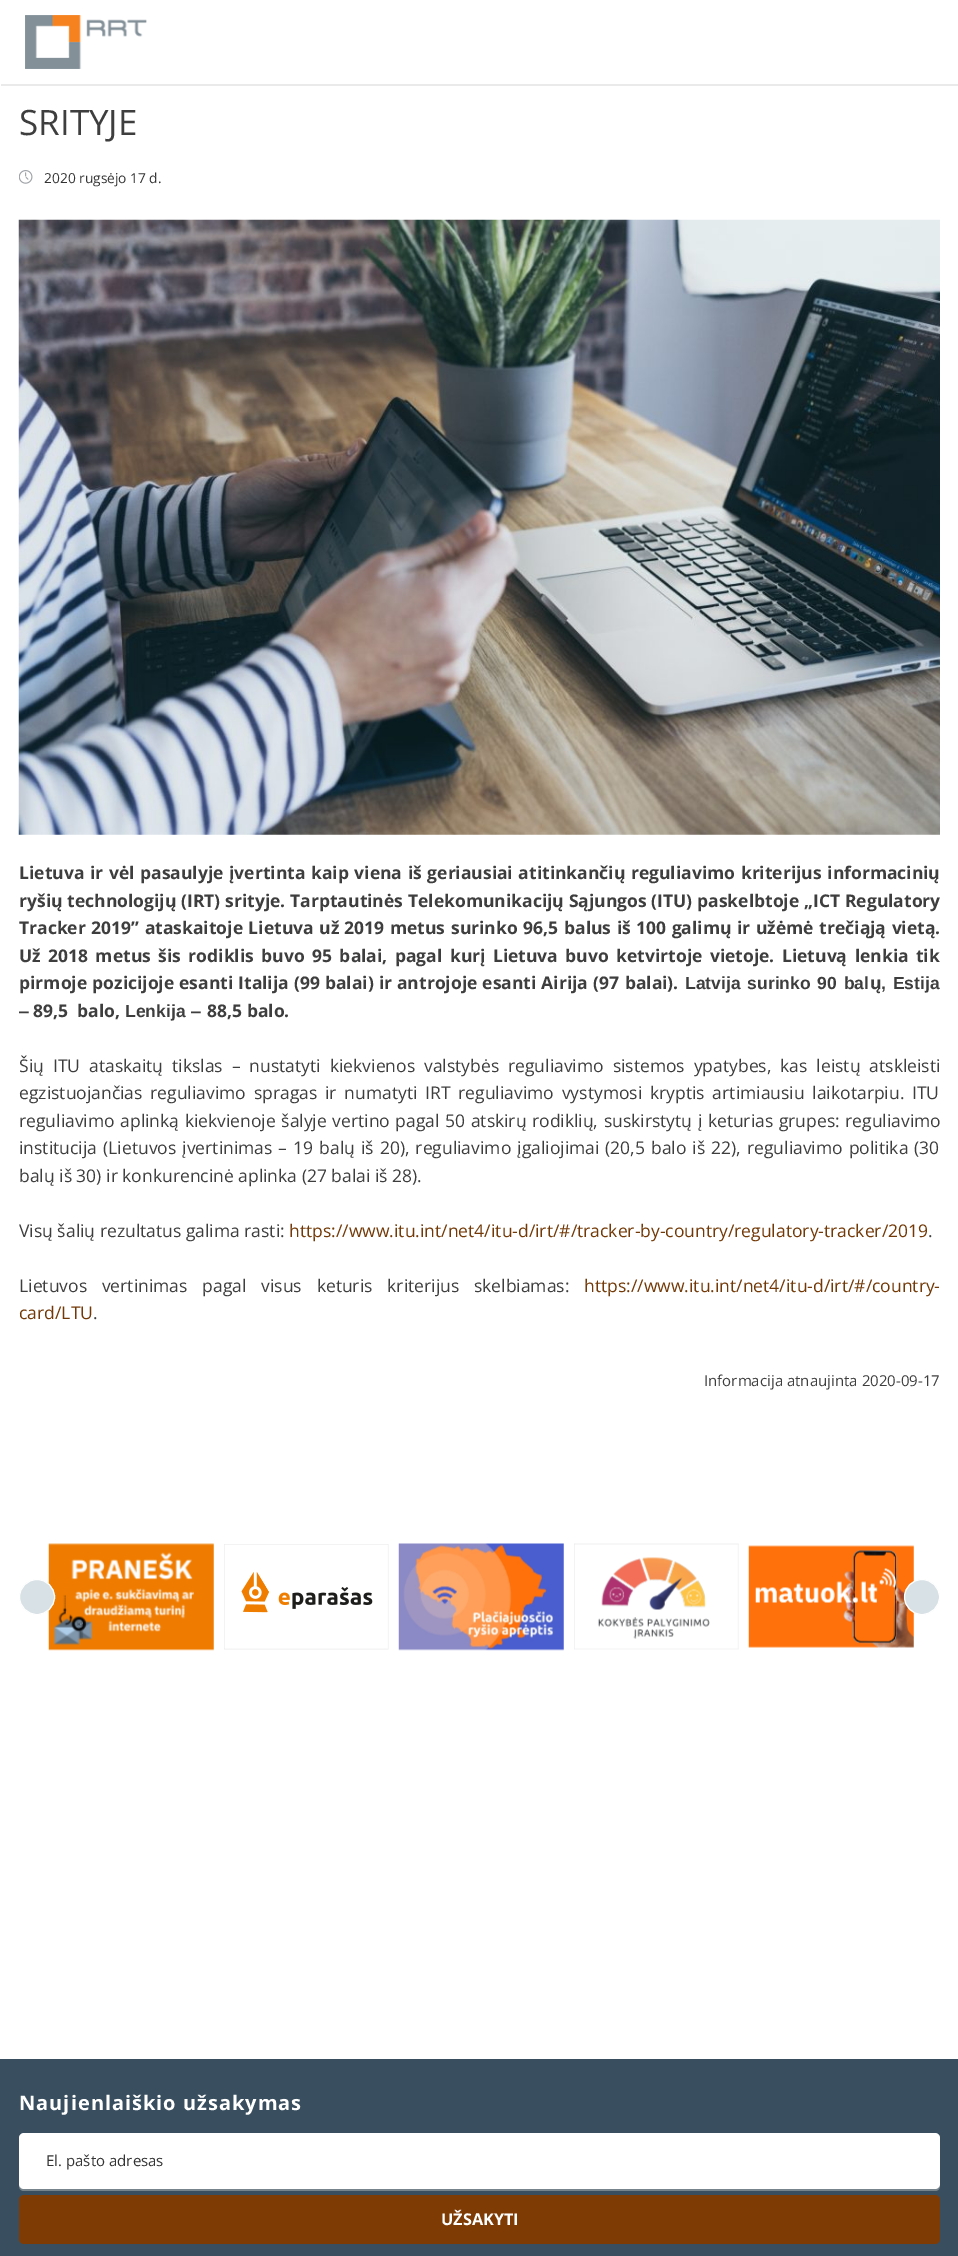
%!PS
<< /PageSize [958 2256] /PageUsesTransparency true >> setpagedevice
/mt/moveto load def
/li/lineto load def
/ct/curveto load def
/cp/closepath load def
/fl/fill load def
/st/stroke load def
/gs/gsave load def
/gr/grestore load def
/co { dup -16 bitshift 255 div exch dup -8 bitshift 255 and 255 div exch 255 and 255 div setrgbcolor } def
/fn { [ exch dup neg 0 0 3 -1 roll 0 0 ] selectfont } def
/tx { co fn moveto show } def
/bx { co rectfill } def
/al { dup .setfillconstantalpha .setstrokeconstantalpha } def
/ci { newpath 0 360 arc closepath } def
/rr { 5 dict begin { /r /h /w /y /x } { exch def } forall
  x r add y moveto x w add y 2 copy h add r arct x w add y h add x 1 index r arct
  x y h add x y r arct x y 2 copy exch w add exch r arct closepath end } def
/im { 5 dict begin { /h /w /y /x /name } { exch def } forall
  gsave x y translate w h scale
  w h 8 [w 0 0 h 0 0] name (r) file false 3 colorimage grestore end } def
0 .pushpdf14devicefilter
0 2256 translate 1 -1 scale
4 setmiterlimit
0 0 958 2256 16#394E5F bx
0 0 958 2059 16#FFFFFF bx
0.49 al
16#D4D4D4 co
1 84 mt 1 86 li 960 86 li 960 3 li 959 3 li 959 84 li cp fl
1 al
(media/1.raw) 25 15 122 54 im
(media/2.raw) 19 170 14 14 im
(media/3.raw) 18 219 922 616 im
(media/4.raw) 48 1543 166 108 im
16#D8E1E6 co
37 1597 17.5 ci gs fl gr
16#FFFFFF co
st
(media/5.raw) 224 1544 165 106 im
(media/6.raw) 398 1543 166 108 im
(media/7.raw) 574 1543 165 107 im
(media/8.raw) 748 1545 166 103 im
16#D8E1E6 co
922 1597 17.5 ci gs fl gr
16#FFFFFF co
st
16#78848B co
19 2185 mt 19 2186 li 19 2189 21 2191 24 2191 ct 935 2191 li 938 2191 940 2189 940 2186 ct 940 2184 li 940 2187 938 2189 935 2189 ct 24 2189 li 22 2189 20 2187 19 2185 ct cp fl
16#FFFFFF co
19 2133 921 56 5 rr fl
16#7F3B04 co
19 2195 921 49 5 rr fl
(SRITYJE) 19 135 /OpenSans-Regular 35 16#3E3E3E tx
(2020 rugsėjo 17 d.) 44 183 /OpenSans-Regular 13.75 16#333333 tx
/OpenSans-Bold 17.5 fn
16#3E3E3E co
19 879 mt 1.1 0 32 (Lietuva ir vėl pasaulyje įvertinta kaip viena iš geriausiai atitinkančių reguliavimo kriterijus informacinių) widthshow
19 907 mt .25 0 32 (ryšių technologijų \(IRT\) srityje. Tarptautinės Telekomunikacijų Sąjungos \(ITU\) paskelbtoje „ICT Regulatory) widthshow
19 934 mt 1 0 32 (Tracker 2019” ataskaitoje Lietuva už) widthshow
344 934 mt 1 0 32 (2019 metus) widthshow
451 934 mt 1 0 32 (surinko 96,5) widthshow
564 934 mt 1 0 32 (balus i) widthshow
(š) 622 934 /OpenSans-Bold 17.5 16#3E3E3E tx
636 934 mt 1 0 32 (100 galim) widthshow
720 934 mt 1 0 32 (ų ir užėmė trečiąją vietą.) widthshow
(Už) 19 962 /OpenSans-Bold 17.5 16#3E3E3E tx
48 962 mt 2.9 0 32 (2018 metus šis rodiklis buvo 95 balai, pagal kurį Lietuva buvo ketvirtoje vietoje. Lietuvą lenkia tik) widthshow
19 989 mt .5 0 32 (pirmoje pozicijoje esanti Italija \(99 balai\) ir antrojoje esanti Airija \() widthshow
599 989 mt 1 0 32 (97 balai\).) widthshow
/LiberationSans-Bold 17.5 fn
685 989 mt 2 0 32 (Latvija surinko 90 bal) widthshow
(ų) 870 989 /OpenSans-Bold 17.5 16#3E3E3E tx
/LiberationSans-Bold 17.5 fn
881 989 mt 2 0 32 (, Estija) widthshow
(‒) 19 1017 /LiberationSans-Bold 17.5 16#3E3E3E tx
(89,5  balo,) 33 1017 /OpenSans-Bold 17.5 16#3E3E3E tx
/LiberationSans-Bold 17.5 fn
125 1017 mt 1 0 32 (Lenkija ‒) widthshow
(88,5 balo.) 207 1017 /OpenSans-Bold 17.5 16#3E3E3E tx
/OpenSans-Regular 17.5 fn
19 1072 mt 4.4 0 32 (Šių ITU ataskaitų tikslas – nustatyti kiekvienos valstybės reguliavimo sistemos ypatybes, kas leistų atskleisti) widthshow
19 1099 mt 3.25 0 32 (egzistuojančias reguliavimo spragas ir numatyti IRT reguliavimo vystymosi kryptis artimiausiu laikotarpiu. ITU) widthshow
19 1127 mt 1 0 32 (reguliavimo aplinką kiekvienoje šalyje vertino pagal 50 atskirų rodiklių, suskirstytų į keturias grupes: reguliavimo) widthshow
19 1154 mt 1.5 0 32 (institucija \(Lietuvos įvertinimas – 19 balų iš 20\), reguliavimo įgaliojimai \(20,5 balo iš 22\), reguliavimo politika \(30) widthshow
(balų iš 30\) ir konkurencinė aplinka \(27 balai iš 28\).) 19 1182 /OpenSans-Regular 17.5 16#3E3E3E tx
(Visų šalių rezultatus galima rasti:) 19 1237 /OpenSans-Regular 17.5 16#3E3E3E tx
(https://www.itu.int/net4/itu-d/irt/#/tracker-by-country/regulatory-tracker/2019) 289 1237 /OpenSans-Regular 17.5 16#723907 tx
(.) 928 1237 /OpenSans-Regular 17.5 16#3E3E3E tx
19 1292 mt 10.25 0 32 (Lietuvos vertinimas pagal visus keturis kriterijus skelbiamas:) widthshow
(https://www.itu.int/net4/itu-d/irt/#/country-) 584 1292 /OpenSans-Regular 17.5 16#723907 tx
(card/LTU) 19 1319 /OpenSans-Regular 17.5 16#723907 tx
(.) 93 1319 /OpenSans-Regular 17.5 16#3E3E3E tx
(Informacija atnaujinta 2020-09-17) 704 1386 /OpenSans-Regular 15 16#3E3E3E tx
/OpenSans-Bold 20 fn
16#FFFFFF co
19 2110 mt 1 0 (Naujienlaiškio užsakymas) ashow
(El. pašto adresas) 46 2166 /OpenSans-Regular 15 16#333333 tx
(UŽSAKYTI) 441 2225 /OpenSans-Bold 16.25 16#FFFFFF tx
.poppdf14devicefilter showpage
